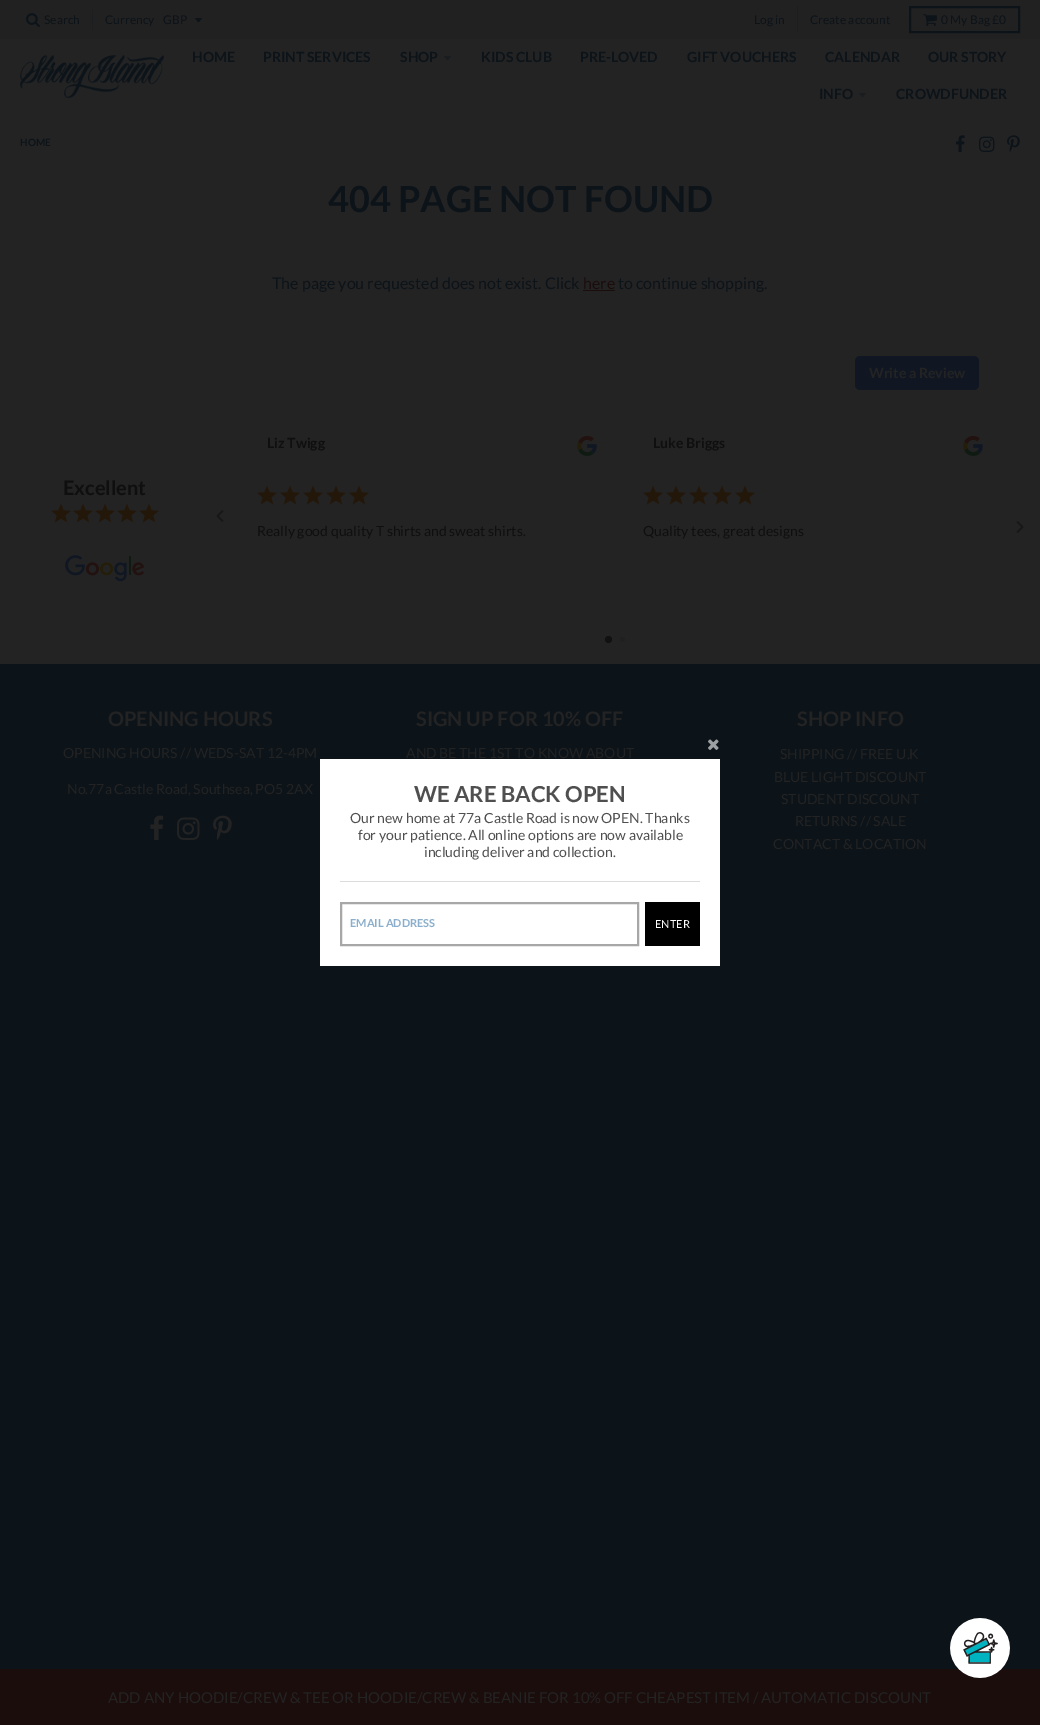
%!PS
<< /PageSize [1040 1725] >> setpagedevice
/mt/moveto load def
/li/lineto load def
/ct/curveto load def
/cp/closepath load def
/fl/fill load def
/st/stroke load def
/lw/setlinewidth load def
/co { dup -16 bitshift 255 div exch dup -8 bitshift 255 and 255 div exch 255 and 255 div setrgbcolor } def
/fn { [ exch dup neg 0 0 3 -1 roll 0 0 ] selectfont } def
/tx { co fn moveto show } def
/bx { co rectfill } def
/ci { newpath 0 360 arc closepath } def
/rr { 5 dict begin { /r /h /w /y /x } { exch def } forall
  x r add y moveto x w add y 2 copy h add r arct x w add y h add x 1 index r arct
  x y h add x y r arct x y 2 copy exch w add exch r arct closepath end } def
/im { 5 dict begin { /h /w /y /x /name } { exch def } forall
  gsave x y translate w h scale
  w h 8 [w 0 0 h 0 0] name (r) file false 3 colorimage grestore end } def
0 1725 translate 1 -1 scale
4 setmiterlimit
0 0 1040 1725 16#0C1319 bx
0 39 1040 625 16#232323 bx
0 0 1040 39 16#212121 bx
(media/1.raw) 26 13 14 15 im
92 9 1 21 16#1D1E20 bx
16#0C1319 co
195 18 mt 199.5 23.5 197.5 23.5 202 18 ct cp fl
797 6 1 27 16#1D1E20 bx
16#0C1319 co
2 lw
910 7 109 25 rectstroke
(media/2.raw) 923 14 14 12 im
(media/3.raw) 20 55 144 43 im
16#1A1D1F co
444 56 mt 448.5 61.5 446.5 61.5 451 56 ct cp fl
859 93 mt 863.5 98.5 861.5 98.5 866 93 ct cp fl
(media/4.raw) 955 135 10 17 im
(media/5.raw) 979 136 16 16 im
(media/6.raw) 1007 135 13 17 im
583 290 32 1 16#1C0D0D bx
16#111722 co
855 356 124 34 5 rr fl
(media/7.raw) 51 503 20 20 im
(media/7.raw) 73 503 20 20 im
(media/7.raw) 95 503 20 20 im
(media/7.raw) 117 503 20 20 im
(media/7.raw) 139 503 20 20 im
(media/8.raw) 65 555 80 27 im
16#171717 co
1.7 lw
1 setlinecap
1 setlinejoin
222.5 521 mt 217.5 516 li 222.5 511 li st
(media/9.raw) 577 436 20 20 im
(media/10.raw) 257 485 20 20 im
(media/10.raw) 280 485 20 20 im
(media/10.raw) 303 485 20 20 im
(media/10.raw) 326 485 20 20 im
(media/10.raw) 349 485 20 20 im
(media/9.raw) 963 436 20 20 im
(media/10.raw) 643 485 20 20 im
(media/10.raw) 666 485 20 20 im
(media/10.raw) 689 485 20 20 im
(media/10.raw) 712 485 20 20 im
(media/10.raw) 735 485 20 20 im
1017.5 532 mt 1022.5 527 li 1017.5 522 li st
16#111111 co
608.5 639.5 3.5 ci fl
16#202020 co
622.5 639.5 2.5 ci fl
(media/11.raw) 150 815 14 25 im
(media/12.raw) 177 817 23 23 im
(media/13.raw) 213 815 19 25 im
0 1669 1040 56 16#1C0D0D bx
320 759 400 207 16#FFFFFF bx
(media/14.raw) 708 739 11 11 im
340 881 360 1 16#DCDCDC bx
16#A7A7A7 co
2 lw
0 setlinecap
0 setlinejoin
341 903 297 42 rectstroke
645 902 55 44 16#000000 bx
(media/15.raw) 950 1618 60 60 im
(Search) 44 24 /Lato-Regular 12 16#0C1319 tx
(Currency) 105 24 /Lato-Regular 12 16#0C1319 tx
(GBP) 163 24 /Lato-Regular 12 16#0C1319 tx
(Log in) 754 24 /Lato-Regular 12 16#0C1319 tx
(Create account) 810 24 /Lato-Regular 12 16#0C1319 tx
(0 My Bag £0) 941 24 /Lato-Regular 12 16#0C1319 tx
(HOME) 192 62 /Lato-Bold 14 16#0C1319 tx
(PRINT SERVICES) 263 62 /Lato-Bold 14 16#0C1319 tx
(SHOP) 400 62 /Lato-Bold 14 16#0C1319 tx
(KIDS CLUB) 481 62 /Lato-Bold 14 16#0C1319 tx
(PRE-LOVED) 580 62 /Lato-Bold 14 16#0C1319 tx
(GIFT VOUCHERS) 687 62 /Lato-Bold 14 16#0C1319 tx
(CALENDAR) 825 62 /Lato-Bold 14 16#0C1319 tx
(OUR STORY) 928 62 /Lato-Bold 14 16#0C1319 tx
(INFO) 819 99 /Lato-Bold 14 16#0C1319 tx
(CROWDFUNDER) 896 99 /Lato-Bold 14 16#0C1319 tx
(HOME) 20 146 /Lato-Bold 10 16#0C1319 tx
(404 PAGE NOT FOUND) 328 212 /Lato-Bold 36 16#0C1319 tx
(The page you requested does not exist. Click) 272 289 /Lato-Regular 16 16#0C1319 tx
(here) 583 289 /Lato-Regular 16 16#1C0D0D tx
(to continue shopping.) 618 289 /Lato-Regular 16 16#0C1319 tx
(Write a Review) 869 378 /Lato-Bold 14 16#232323 tx
(Excellent) 63 495 /Lato-Bold 20 16#0F0F0F tx
(Liz Twigg) 267 448 /Lato-Bold 14 16#0F0F0F tx
(Really good quality T shirts and sweat shirts.) 257 536 /Lato-Regular 14 16#0F0F0F tx
(Luke Briggs) 653 448 /Lato-Bold 14 16#0F0F0F tx
(Quality tees, great designs) 643 536 /Lato-Regular 14 16#0F0F0F tx
(OPENING HOURS) 108 726 /Lato-Bold 20 16#232323 tx
(OPENING HOURS // WEDS-SAT 12-4PM) 63 758 /Lato-Regular 14 16#232323 tx
(No.77a Castle Road, Southsea, PO5 2AX) 67 794 /Lato-Regular 14 16#232323 tx
(SIGN UP FOR 10% OFF) 416 726 /Lato-Bold 20 16#232323 tx
(AND BE THE 1ST TO KNOW ABOUT) 406 758 /Lato-Regular 14 16#232323 tx
(SHOP INFO) 797 726 /Lato-Bold 20 16#232323 tx
(SHIPPING // FREE U.K) 780 759 /Lato-Regular 14 16#232323 tx
(BLUE LIGHT DISCOUNT) 774 782 /Lato-Regular 14 16#232323 tx
(STUDENT DISCOUNT) 781 804 /Lato-Regular 14 16#232323 tx
(RETURNS // SALE) 795 826 /Lato-Regular 14 16#232323 tx
(CONTACT & LOCATION) 773 849 /Lato-Regular 14 16#232323 tx
(ADD ANY HOODIE/CREW & TEE OR HOODIE/CREW & BEANIE FOR 10% OFF CHEAPEST ITEM / AUTOMATIC DISCOUNT) 108 1703 /Lato-Regular 15 16#232323 tx
(WE ARE BACK OPEN) 414 802 /Lato-Bold 22 16#4F4F4F tx
(Our new home at 77a Castle Road is now OPEN. Thanks) 350 823 /Lato-Regular 14 16#4F4F4F tx
(for your patience. All online options are now available) 358 840 /Lato-Regular 14 16#4F4F4F tx
(including deliver and collection.) 424 857 /Lato-Regular 14 16#4F4F4F tx
(EMAIL ADDRESS) 350 927 /Lato-Bold 11 16#8AAECC tx
(ENTER) 655 928 /Lato-Regular 11 16#FFFFFF tx
showpage
